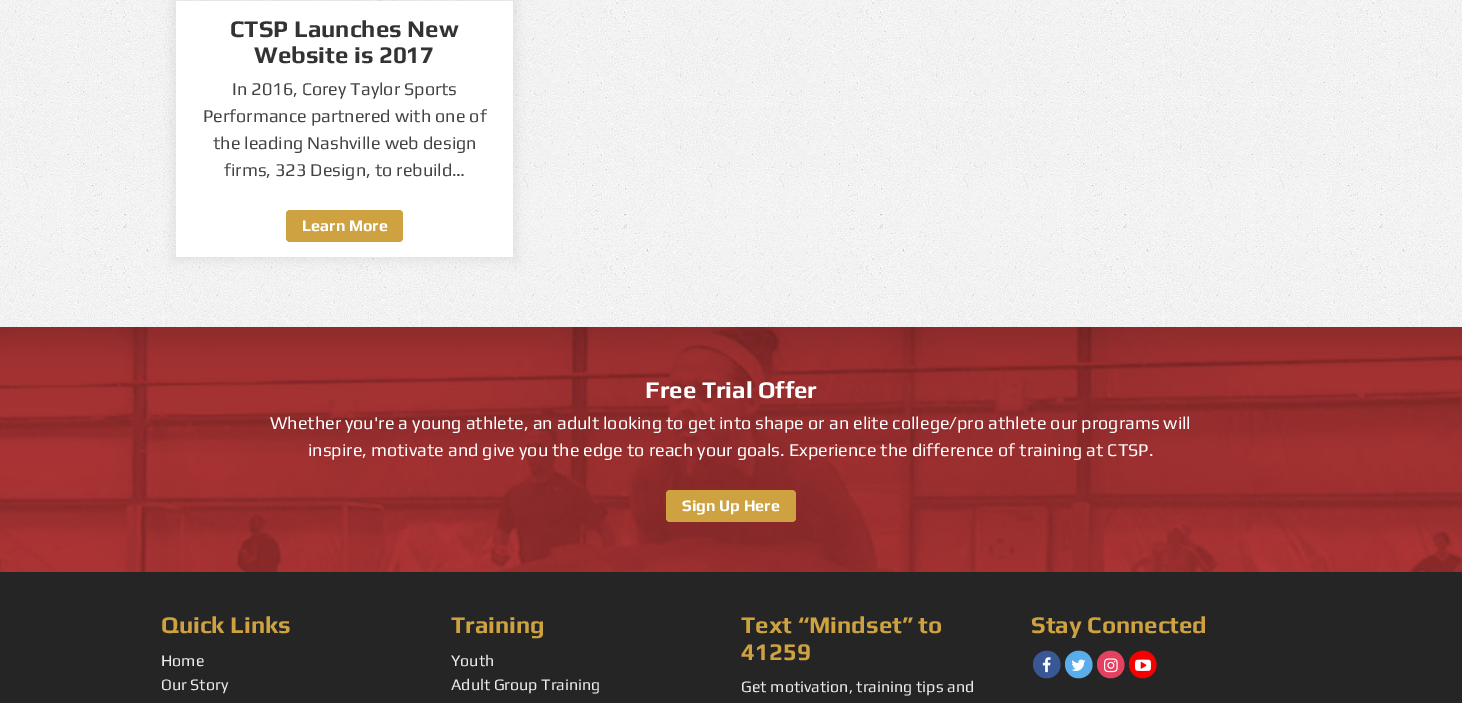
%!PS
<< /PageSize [1462 703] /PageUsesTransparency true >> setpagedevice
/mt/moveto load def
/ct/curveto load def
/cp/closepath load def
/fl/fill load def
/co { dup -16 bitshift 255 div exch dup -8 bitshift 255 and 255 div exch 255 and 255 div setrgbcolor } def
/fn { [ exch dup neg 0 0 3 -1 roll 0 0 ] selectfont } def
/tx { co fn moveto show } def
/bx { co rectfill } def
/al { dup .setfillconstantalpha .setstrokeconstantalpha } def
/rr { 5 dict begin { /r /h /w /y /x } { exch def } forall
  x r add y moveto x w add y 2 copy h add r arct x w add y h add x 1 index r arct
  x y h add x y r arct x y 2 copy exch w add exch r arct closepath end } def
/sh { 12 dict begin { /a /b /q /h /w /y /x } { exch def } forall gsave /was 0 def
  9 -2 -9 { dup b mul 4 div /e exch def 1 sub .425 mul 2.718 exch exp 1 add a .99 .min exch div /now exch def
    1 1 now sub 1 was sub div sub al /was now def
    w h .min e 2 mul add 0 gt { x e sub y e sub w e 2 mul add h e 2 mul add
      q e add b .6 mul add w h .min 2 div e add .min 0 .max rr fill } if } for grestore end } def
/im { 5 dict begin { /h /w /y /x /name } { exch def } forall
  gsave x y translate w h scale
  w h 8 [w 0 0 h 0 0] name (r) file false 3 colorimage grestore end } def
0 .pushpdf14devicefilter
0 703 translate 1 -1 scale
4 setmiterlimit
0 0 1462 703 16#FFFFFF bx
(media/1.raw) 0 0 1462 327 im
16#000000 co
171 -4 347 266 0 5 .05 sh
176 1 337 256 16#FFFFFF bx
16#CFA241 co
286 210 117 32 4 rr fl
(media/2.raw) 0 327 1462 245 im
666 490 130 32 4 rr fl
0 572 1462 131 16#252525 bx
16#3A5795 co
1058.5 657.5 mt 1060 660 1060.5 663 1060.5 665.5 ct 1059.5 679 1041.5 683 1035 671.5 ct 1033.5 669 1033 666.5 1033 663.5 ct 1034 650 1052 646 1058.5 657.5 ct cp fl
(media/3.raw) 1042 657 9 16 im
16#58AEEA co
1090.5 657.5 mt 1092 660 1092.5 663 1092.5 665.5 ct 1091.5 679 1073.5 683 1067 671.5 ct 1065.5 669 1065 666.5 1065 663.5 ct 1066 650 1084 646 1090.5 657.5 ct cp fl
(media/4.raw) 1071 659 15 12 im
16#E4405F co
1122.5 657.5 mt 1124 660 1124.5 663 1124.5 665.5 ct 1123.5 679 1105.5 683 1099 671.5 ct 1097.5 669 1097 666.5 1097 663.5 ct 1098 650 1116 646 1122.5 657.5 ct cp fl
(media/5.raw) 1104 658 14 15 im
16#F80000 co
1154.5 657.5 mt 1156 660 1156.5 663 1156.5 665.5 ct 1155.5 679 1137.5 683 1131 671.5 ct 1129.5 669 1129 666.5 1129 663.5 ct 1130 650 1148 646 1154.5 657.5 ct cp fl
(media/6.raw) 1135 659 16 12 im
(CTSP Launches New) 230 37 /Play-Bold 24 16#333333 tx
(Website is 2017) 254 63 /Play-Bold 24 16#333333 tx
(In 2016, Corey Taylor Sports) 232 95 /Play-Regular 18 16#444444 tx
(Performance partnered with one of) 203 122 /Play-Regular 18 16#444444 tx
(the leading Nashville web design) 213 149 /Play-Regular 18 16#444444 tx
(firms, 323 Design, to rebuild…) 224 176 /Play-Regular 18 16#444444 tx
(Learn More) 302 231 /Play-Bold 16 16#FFFFFF tx
(Free Trial Offer) 645 398 /Play-Bold 24 16#FFFFFF tx
(Whether you're a young athlete, an adult looking to get into shape or an elite college/pro athlete our programs will) 270 429 /Play-Regular 18 16#FFFFFF tx
(inspire, motivate and give you the edge to reach your goals. Experience the difference of training at CTSP.) 308 456 /Play-Regular 18 16#FFFFFF tx
(Sign Up Here) 682 511 /Play-Bold 16 16#FFFFFF tx
(Quick Links) 161 633 /Play-Bold 24 16#CFA241 tx
(Home) 161 666 /Play-Regular 16 16#EBEBEB tx
(Our Story) 161 690 /Play-Regular 16 16#EBEBEB tx
(Training) 451 633 /Play-Bold 24 16#CFA241 tx
(Youth) 451 666 /Play-Regular 16 16#EBEBEB tx
(Adult Group Training) 451 690 /Play-Regular 16 16#EBEBEB tx
(Text “Mindset” to) 741 633 /Play-Bold 24 16#CFA241 tx
(41259) 741 660 /Play-Bold 24 16#CFA241 tx
(Get motivation, training tips and) 741 692 /Play-Regular 16 16#EBEBEB tx
(Stay Connected) 1031 633 /Play-Bold 24 16#CFA241 tx
.poppdf14devicefilter showpage
